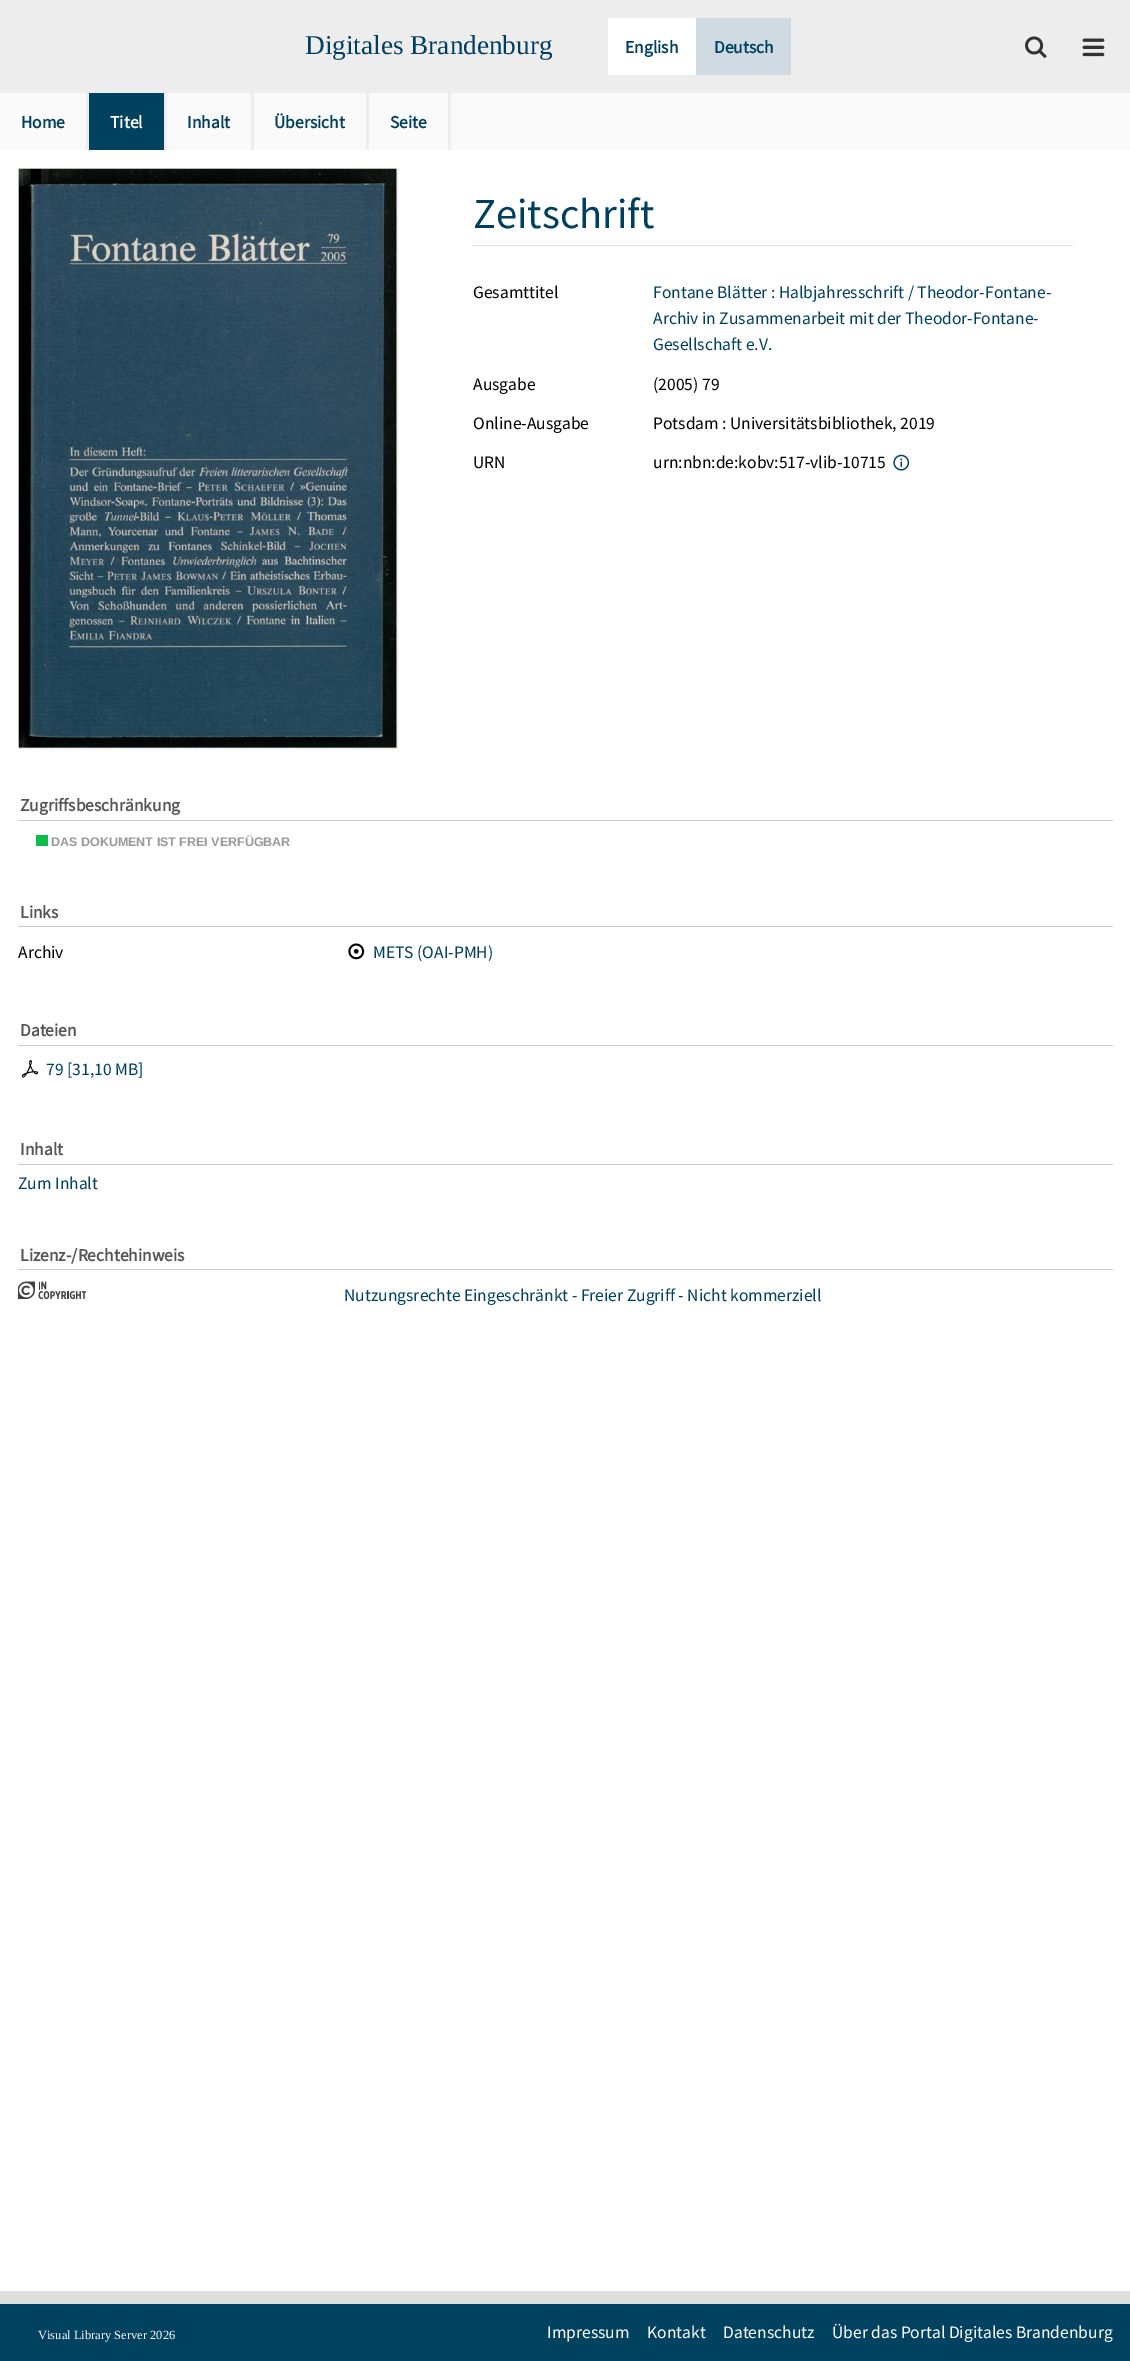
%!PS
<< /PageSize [1130 2361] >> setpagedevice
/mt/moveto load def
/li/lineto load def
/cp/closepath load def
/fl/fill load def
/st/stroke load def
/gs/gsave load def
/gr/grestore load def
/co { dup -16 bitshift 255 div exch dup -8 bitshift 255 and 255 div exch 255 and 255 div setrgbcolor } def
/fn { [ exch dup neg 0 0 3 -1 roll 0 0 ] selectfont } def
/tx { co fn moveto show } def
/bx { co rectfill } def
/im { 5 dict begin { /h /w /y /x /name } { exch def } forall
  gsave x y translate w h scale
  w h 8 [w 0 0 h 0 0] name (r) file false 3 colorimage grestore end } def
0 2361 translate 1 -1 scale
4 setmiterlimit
0 0 1130 2361 16#FFFFFF bx
0 0 1130 93 16#EDEDED bx
608 18 88 57 16#FFFFFF bx
696 18 95 57 16#CFDAE3 bx
(media/1.raw) 1025 36 22 22 im
(media/2.raw) 1082 38 23 19 im
0 93 1130 57 16#FAFAFA bx
86 93 3 57 16#EDEDED bx
164 93 3 57 16#EDEDED bx
89 93 75 57 16#004260 bx
251 93 3 57 16#EDEDED bx
366 93 3 57 16#EDEDED bx
448 93 3 57 16#EDEDED bx
16#AAAAAA co
18.5 168.5 mt 397.5 168.5 li 397.5 748.5 li 18.5 748.5 li cp gs fl gr
16#EEEEEC co
st
(media/3.raw) 18 168 379 580 im
473 245 600 1 16#DDDDDD bx
(media/4.raw) 893 454 17 17 im
18 820 1095 1 16#CCCCCC bx
36 835 12 11 16#0BBE49 bx
18 926 1095 1 16#CCCCCC bx
(media/5.raw) 348 943 17 17 im
18 1045 1095 1 16#CCCCCC bx
(media/6.raw) 21 1060 18 18 im
18 1164 1095 1 16#CCCCCC bx
18 1269 1095 1 16#CCCCCC bx
(media/7.raw) 18 1281 68 18 im
0 2304 1130 57 16#004260 bx
0 2291 1130 13 16#DEDEDE bx
(Digitales Brandenburg) 305 54 /LiberationSerif-Regular 27.25 16#003F60 tx
(English) 625 53 /SourceSansPro-Bold 17.5 16#003F60 tx
(Deutsch) 714 53 /SourceSansPro-Bold 17.5 16#003F60 tx
(Home) 21 128 /SourceSansPro-Bold 17.5 16#003F60 tx
(Titel) 110 128 /SourceSansPro-Bold 17.5 16#FFFFFF tx
(Inhalt) 187 128 /SourceSansPro-Bold 17.5 16#003F60 tx
(Übersicht) 274 128 /SourceSansPro-Bold 17.5 16#003F60 tx
(Seite) 390 128 /SourceSansPro-Bold 17.5 16#003F60 tx
(Zeitschrift) 473 228 /SourceSansPro-Regular 42.5 16#003F60 tx
(Gesamttitel) 473 298 /SourceSansPro-Regular 17.5 16#000000 tx
(Fontane Blätter : Halbjahresschrift / Theodor-Fontane-) 653 298 /SourceSansPro-Regular 17.5 16#003F60 tx
(Archiv in Zusammenarbeit mit der Theodor-Fontane-) 653 324 /SourceSansPro-Regular 17.5 16#003F60 tx
(Gesellschaft e.V.) 653 350 /SourceSansPro-Regular 17.5 16#003F60 tx
(Ausgabe) 473 390 /SourceSansPro-Regular 17.5 16#000000 tx
(\(2005\) 79) 653 390 /SourceSansPro-Regular 17.5 16#000000 tx
(Online-Ausgabe) 473 429 /SourceSansPro-Regular 17.5 16#000000 tx
(Potsdam : Universitätsbibliothek, 2019) 653 429 /SourceSansPro-Regular 17.5 16#000000 tx
(URN) 473 468 /SourceSansPro-Regular 17.5 16#000000 tx
(urn:nbn:de:kobv:517-vlib-10715) 653 468 /SourceSansPro-Regular 17.5 16#000000 tx
(Zugriffsbeschränkung) 20 811 /SourceSansPro-Bold 17.5 16#555555 tx
(DAS DOKUMENT IST FREI VERFÜGBAR) 51 846 /LiberationSans-Bold 12.5 16#999999 tx
(Links) 20 918 /SourceSansPro-Bold 17.5 16#555555 tx
(Archiv) 18 958 /SourceSansPro-Regular 17.5 16#000000 tx
(METS \(OAI-PMH\)) 373 958 /SourceSansPro-Regular 17.5 16#003F60 tx
(Dateien) 20 1036 /SourceSansPro-Bold 17.5 16#555555 tx
(79 [31,10 MB]) 46 1075 /SourceSansPro-Regular 17.5 16#003F60 tx
(Inhalt) 20 1155 /SourceSansPro-Bold 17.5 16#555555 tx
(Zum Inhalt) 18 1189 /SourceSansPro-Regular 17.5 16#003F60 tx
(Lizenz-/Rechtehinweis) 20 1261 /SourceSansPro-Bold 17.5 16#555555 tx
(Nutzungsrechte Eingeschränkt - Freier Zugriff - Nicht kommerziell) 344 1301 /SourceSansPro-Regular 17.5 16#003F60 tx
(Visual Library Server 2026) 38 2339 /LiberationSerif-Regular 12.5 16#FFFFFF tx
(Impressum) 547 2338 /SourceSansPro-Regular 17.5 16#FFFFFF tx
(Kontakt) 647 2338 /SourceSansPro-Regular 17.5 16#FFFFFF tx
(Datenschutz) 723 2338 /SourceSansPro-Regular 17.5 16#FFFFFF tx
(Über das Portal Digitales Brandenburg) 832 2338 /SourceSansPro-Regular 17.5 16#FFFFFF tx
showpage
